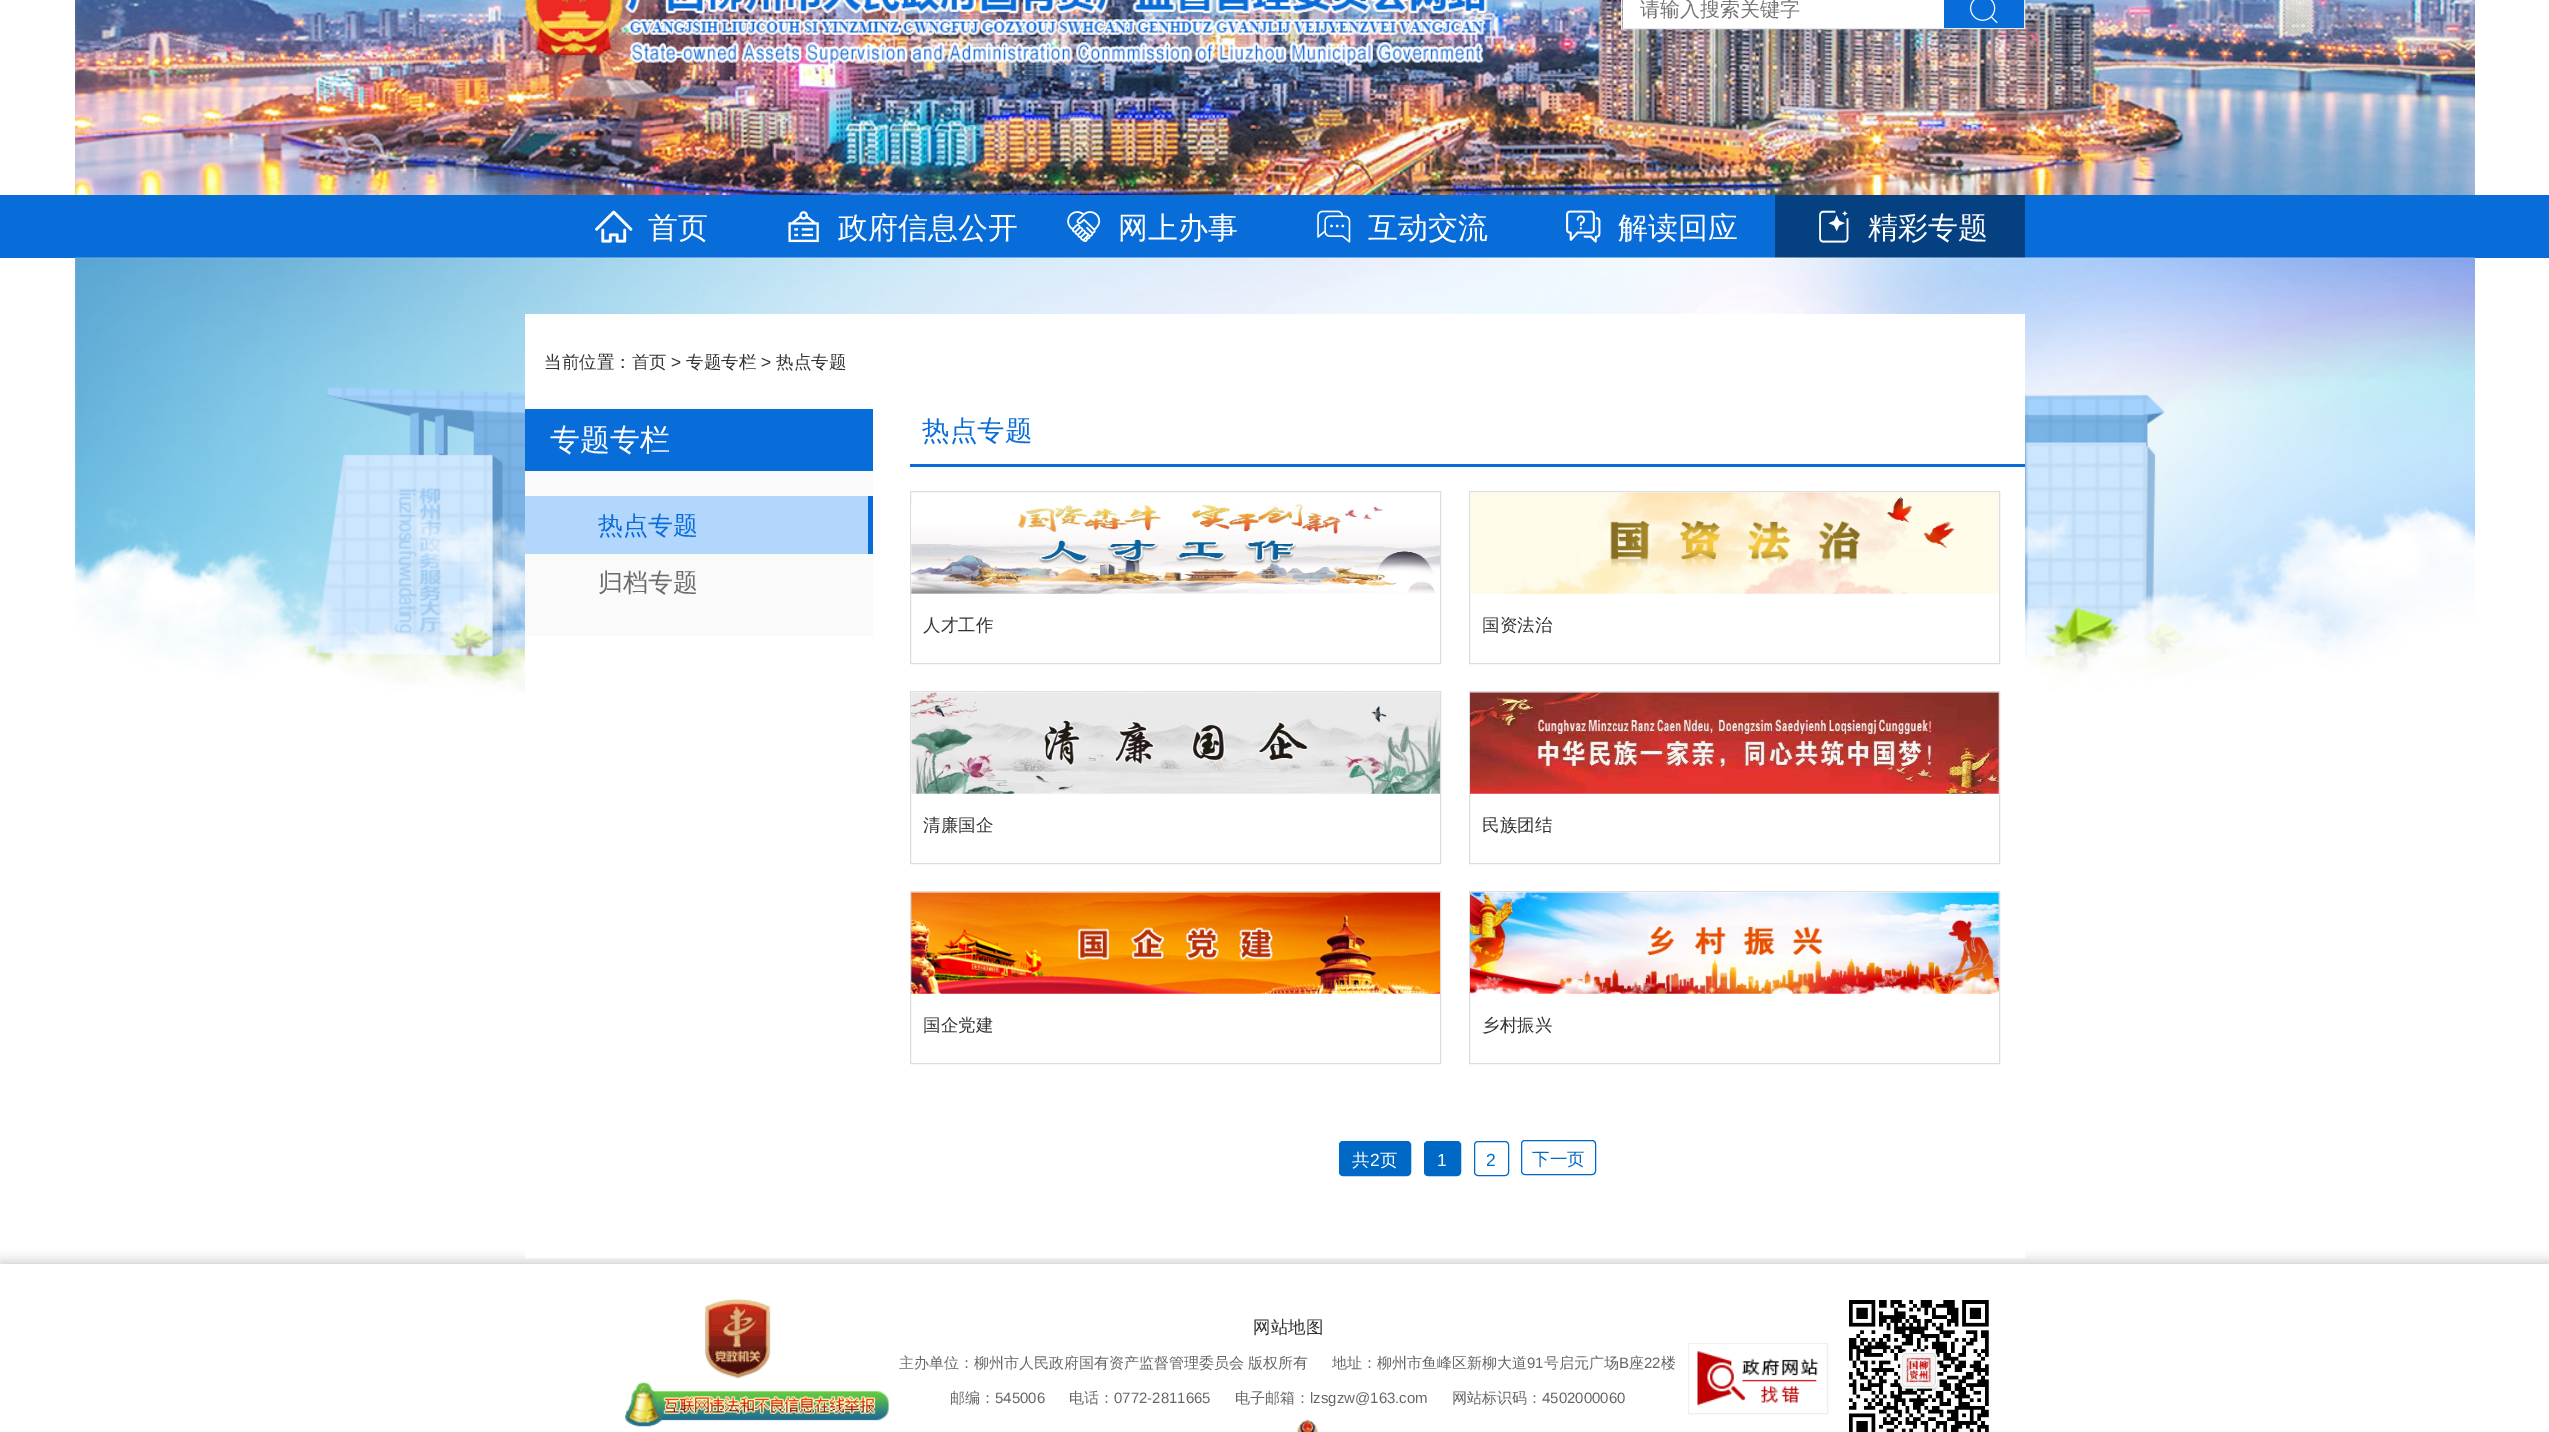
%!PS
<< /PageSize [2549 1432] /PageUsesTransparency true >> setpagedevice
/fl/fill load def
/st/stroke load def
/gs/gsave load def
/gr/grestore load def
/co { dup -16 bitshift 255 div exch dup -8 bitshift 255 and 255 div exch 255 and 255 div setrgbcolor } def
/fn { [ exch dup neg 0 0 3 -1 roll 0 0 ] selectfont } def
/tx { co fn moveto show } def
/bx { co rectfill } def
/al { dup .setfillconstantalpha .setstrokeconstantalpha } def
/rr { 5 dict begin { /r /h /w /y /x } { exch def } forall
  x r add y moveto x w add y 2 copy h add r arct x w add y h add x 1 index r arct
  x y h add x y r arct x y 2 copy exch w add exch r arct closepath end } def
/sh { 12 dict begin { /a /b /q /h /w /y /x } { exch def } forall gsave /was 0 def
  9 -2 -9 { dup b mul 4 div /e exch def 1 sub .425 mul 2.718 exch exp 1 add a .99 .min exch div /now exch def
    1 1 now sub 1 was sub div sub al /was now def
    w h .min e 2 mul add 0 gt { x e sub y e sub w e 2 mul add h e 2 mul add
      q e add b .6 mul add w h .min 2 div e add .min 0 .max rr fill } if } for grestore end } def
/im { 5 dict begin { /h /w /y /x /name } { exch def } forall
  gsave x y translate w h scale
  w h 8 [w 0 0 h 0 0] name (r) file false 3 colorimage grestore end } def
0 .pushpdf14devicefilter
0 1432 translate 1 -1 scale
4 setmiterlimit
0 0 2549 1432 16#FFFFFF bx
(media/1.raw) 75 0 2400 195 im
(media/2.raw) 525 0 98 57 im
(media/3.raw) 625 0 863 67 im
16#EAEAEA co
1621.5 -.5 403 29 rectstroke
1623 0 321 28 16#FFFFFF bx
1944 0 80 28 16#096DD9 bx
(media/4.raw) 1970 0 28 24 im
0 195 2549 63 16#096DD9 bx
(media/5.raw) 595 210 38 33 im
(media/6.raw) 788 211 31 32 im
(media/7.raw) 1067 211 34 31 im
(media/8.raw) 1317 210 34 33 im
(media/9.raw) 1566 210 35 33 im
1775 195 250 63 16#054181 bx
(media/10.raw) 1819 210 30 33 im
(media/11.raw) 75 257 2400 442 im
gs
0 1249 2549 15 rectclip
16#CCCCCC co
0 1261 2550 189 0 6 1 sh
gr
525 314 1500 944 16#FFFFFF bx
525 409 348 62 16#096DD9 bx
525 471 348 165 16#FAFAFA bx
525 496 343 58 16#B2D6FC bx
868 496 5 58 16#096DD9 bx
910 464 1115 3 16#096DD9 bx
16#DDDDDD co
910.5 491.5 530 172 rectstroke
(media/12.raw) 911 504 529 90 im
1469.5 491.5 530 172 rectstroke
(media/13.raw) 1470 492 529 102 im
910.5 691.5 530 172 rectstroke
(media/14.raw) 911 692 529 102 im
1469.5 691.5 530 172 rectstroke
(media/15.raw) 1470 692 529 102 im
910.5 891.5 530 172 rectstroke
(media/16.raw) 911 892 529 102 im
1469.5 891.5 530 172 rectstroke
(media/17.raw) 1470 892 529 102 im
16#0069C5 co
1339.5 1141.5 71 34 3.5 rr gs fl gr
st
1424.5 1141.5 36 34 3.5 rr gs fl gr
st
1474.5 1141.5 34 34 3.5 rr st
1521.5 1140.5 74 34 3.5 rr st
(media/18.raw) 704 1298 67 81 im
(media/19.raw) 625 1382 264 45 im
(media/20.raw) 1297 1420 21 12 im
16#EEEEEE co
1688.5 1343.5 139 70 rectstroke
(media/21.raw) 1688 1343 135 66 im
(media/22.raw) 1849 1300 140 132 im
(请输入搜索关键字) 1640 16 /WenQuanYiZenHei-Medium 20 16#757575 tx
(首页) 648 238 /WenQuanYiZenHei-Medium 30 16#FFFFFF tx
(政府信息公开) 838 238 /WenQuanYiZenHei-Medium 30 16#FFFFFF tx
(网上办事) 1118 238 /WenQuanYiZenHei-Medium 30 16#FFFFFF tx
(互动交流) 1368 238 /WenQuanYiZenHei-Medium 30 16#FFFFFF tx
(解读回应) 1618 238 /WenQuanYiZenHei-Medium 30 16#FFFFFF tx
(精彩专题) 1868 238 /WenQuanYiZenHei-Medium 30 16#FFFFFF tx
(当前位置：首页) 544 368 /WenQuanYiZenHei-Medium 17.5 16#333333 tx
(>) 671 368 /LiberationSans-Regular 17.5 16#333333 tx
(专题专栏) 686 368 /WenQuanYiZenHei-Medium 17.5 16#333333 tx
(>) 761 368 /LiberationSans-Regular 17.5 16#333333 tx
(热点专题) 776 368 /WenQuanYiZenHei-Medium 17.5 16#333333 tx
(专题专栏) 550 450 /WenQuanYiZenHei-Medium 30 16#FFFFFF tx
(热点专题) 598 534 /WenQuanYiZenHei-Medium 25 16#096DD9 tx
(归档专题) 598 591 /WenQuanYiZenHei-Medium 25 16#6C6C6C tx
(热点专题) 922 440 /WenQuanYiZenHei-Medium 27.5 16#096DD9 tx
(人才工作) 923 631 /WenQuanYiZenHei-Medium 17.5 16#333333 tx
(国资法治) 1482 631 /WenQuanYiZenHei-Medium 17.5 16#333333 tx
(清廉国企) 923 831 /WenQuanYiZenHei-Medium 17.5 16#333333 tx
(民族团结) 1482 831 /WenQuanYiZenHei-Medium 17.5 16#333333 tx
(国企党建) 923 1031 /WenQuanYiZenHei-Medium 17.5 16#333333 tx
(乡村振兴) 1482 1031 /WenQuanYiZenHei-Medium 17.5 16#333333 tx
(共) 1352 1166 /WenQuanYiZenHei-Medium 17.5 16#FFFFFF tx
(2) 1370 1166 /LiberationSans-Regular 17.5 16#FFFFFF tx
(页) 1380 1166 /WenQuanYiZenHei-Medium 17.5 16#FFFFFF tx
(1) 1437 1166 /LiberationSans-Regular 17.5 16#FFFFFF tx
(2) 1486 1166 /LiberationSans-Regular 17.5 16#0069C5 tx
(下一页) 1532 1165 /WenQuanYiZenHei-Medium 17.5 16#0069C5 tx
(网站地图) 1253 1333 /WenQuanYiZenHei-Medium 17.5 16#333333 tx
(主办单位：柳州市人民政府国有资产监督管理委员会 版权所有) 899 1368 /WenQuanYiZenHei-Medium 15 16#666666 tx
(地址：柳州市鱼峰区新柳大道) 1332 1368 /WenQuanYiZenHei-Medium 15 16#666666 tx
(91) 1527 1368 /LiberationSans-Regular 15 16#666666 tx
(号启元广场) 1544 1368 /WenQuanYiZenHei-Medium 15 16#666666 tx
(B) 1619 1368 /LiberationSans-Regular 15 16#666666 tx
(座) 1629 1368 /WenQuanYiZenHei-Medium 15 16#666666 tx
(22) 1644 1368 /LiberationSans-Regular 15 16#666666 tx
(楼) 1661 1368 /WenQuanYiZenHei-Medium 15 16#666666 tx
(邮编：) 950 1403 /WenQuanYiZenHei-Medium 15 16#666666 tx
(545006) 995 1403 /LiberationSans-Regular 15 16#666666 tx
(电话：) 1069 1403 /WenQuanYiZenHei-Medium 15 16#666666 tx
(0772-2811665) 1114 1403 /LiberationSans-Regular 15 16#666666 tx
(电子邮箱：) 1235 1403 /WenQuanYiZenHei-Medium 15 16#666666 tx
(lzsgzw@163.com) 1310 1403 /LiberationSans-Regular 15 16#666666 tx
(网站标识码：) 1452 1403 /WenQuanYiZenHei-Medium 15 16#666666 tx
(4502000060) 1542 1403 /LiberationSans-Regular 15 16#666666 tx
.poppdf14devicefilter showpage
